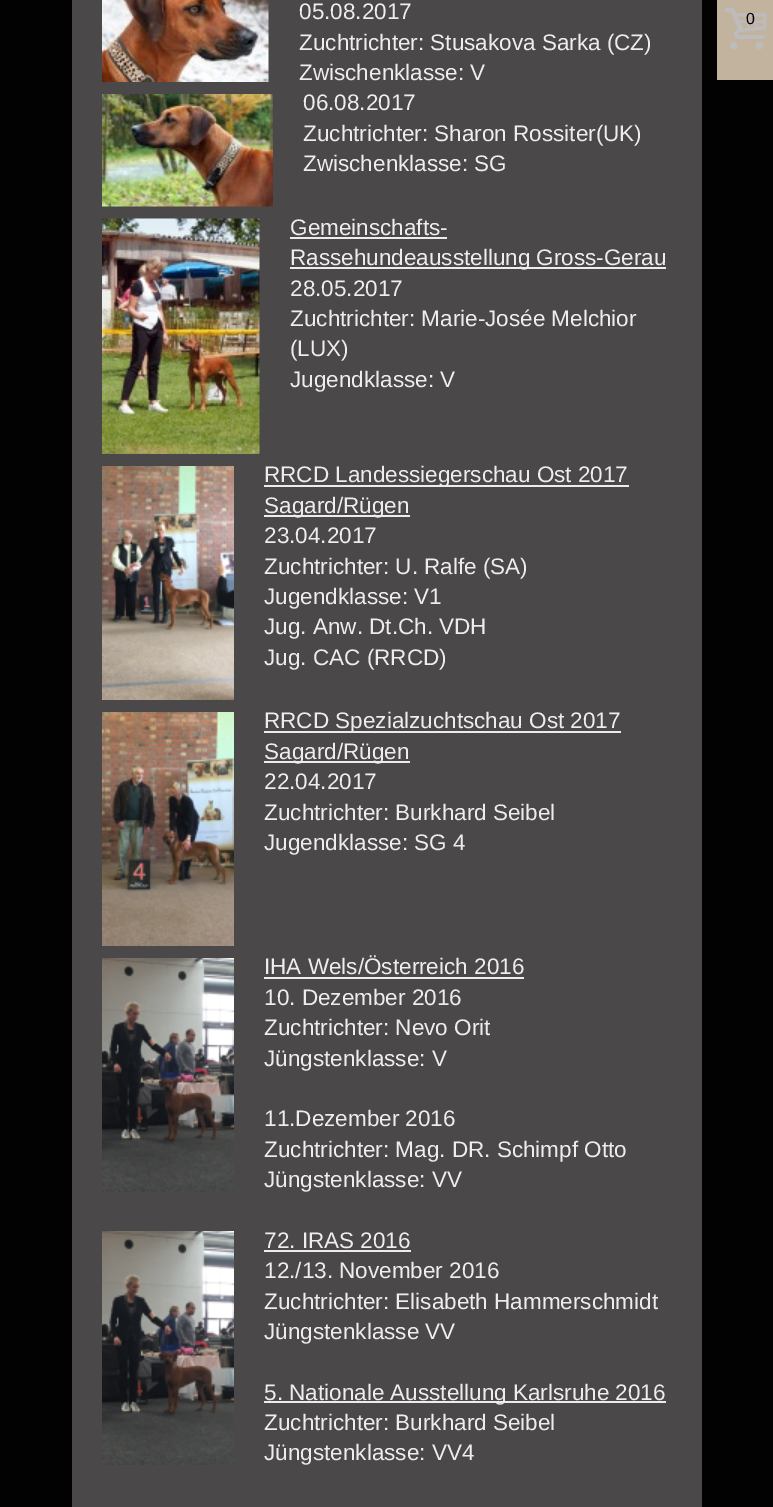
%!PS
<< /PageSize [773 1507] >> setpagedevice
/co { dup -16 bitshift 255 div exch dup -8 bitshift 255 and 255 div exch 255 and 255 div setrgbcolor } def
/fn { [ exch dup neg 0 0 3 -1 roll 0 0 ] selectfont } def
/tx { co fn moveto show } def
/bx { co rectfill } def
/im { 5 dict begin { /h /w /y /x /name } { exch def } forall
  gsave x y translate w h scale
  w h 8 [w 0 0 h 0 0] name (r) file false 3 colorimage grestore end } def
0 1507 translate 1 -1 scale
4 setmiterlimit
0 0 773 1507 16#020202 bx
72 0 630 1507 16#4A4848 bx
(media/1.raw) 102 0 167 82 im
(media/2.raw) 102 94 171 113 im
(media/3.raw) 102 218 158 236 im
290 237 157 2 16#EDEDED bx
290 267 376 2 16#EDEDED bx
(media/4.raw) 102 466 132 234 im
264 485 365 2 16#EDEDED bx
264 515 146 2 16#EDEDED bx
(media/5.raw) 102 712 132 234 im
264 731 357 2 16#EDEDED bx
264 761 146 2 16#EDEDED bx
(media/6.raw) 102 958 132 234 im
264 977 260 2 16#EDEDED bx
(media/6.raw) 102 1231 132 234 im
264 1250 147 2 16#EDEDED bx
264 1401 402 2 16#EDEDED bx
717 0 56 80 16#C1B39E bx
(media/7.raw) 724 7 43 43 im
(05.08.2017) 299 19 /LiberationSans-Regular 22.5 16#EDEDED tx
(Zuchtrichter: Stusakova Sarka \(CZ\)) 299 50 /LiberationSans-Regular 22.5 16#EDEDED tx
(Zwischenklasse: V) 299 80 /LiberationSans-Regular 22.5 16#EDEDED tx
(06.08.2017) 303 110 /LiberationSans-Regular 22.5 16#EDEDED tx
(Zuchtrichter: Sharon Rossiter\(UK\)) 303 141 /LiberationSans-Regular 22.5 16#EDEDED tx
(Zwischenklasse: SG) 303 171 /LiberationSans-Regular 22.5 16#EDEDED tx
(Gemeinschafts-) 290 235 /LiberationSans-Regular 22.5 16#EDEDED tx
(Rassehundeausstellung Gross-Gerau) 290 265 /LiberationSans-Regular 22.5 16#EDEDED tx
(28.05.2017) 290 296 /LiberationSans-Regular 22.5 16#EDEDED tx
(Zuchtrichter: Marie-Josée Melchior) 290 326 /LiberationSans-Regular 22.5 16#EDEDED tx
(\(LUX\)) 290 356 /LiberationSans-Regular 22.5 16#EDEDED tx
(Jugendklasse: V) 290 387 /LiberationSans-Regular 22.5 16#EDEDED tx
(RRCD Landessiegerschau Ost 2017) 264 482 /LiberationSans-Regular 22.5 16#EDEDED tx
(Sagard/Rügen) 264 513 /LiberationSans-Regular 22.5 16#EDEDED tx
(23.04.2017) 264 543 /LiberationSans-Regular 22.5 16#EDEDED tx
(Zuchtrichter: U. Ralfe \(SA\)) 264 574 /LiberationSans-Regular 22.5 16#EDEDED tx
(Jugendklasse: V1) 264 604 /LiberationSans-Regular 22.5 16#EDEDED tx
(Jug. Anw. Dt.Ch. VDH) 264 634 /LiberationSans-Regular 22.5 16#EDEDED tx
(Jug. CAC \(RRCD\)) 264 665 /LiberationSans-Regular 22.5 16#EDEDED tx
(RRCD Spezialzuchtschau Ost 2017) 264 728 /LiberationSans-Regular 22.5 16#EDEDED tx
(Sagard/Rügen) 264 759 /LiberationSans-Regular 22.5 16#EDEDED tx
(22.04.2017) 264 789 /LiberationSans-Regular 22.5 16#EDEDED tx
(Zuchtrichter: Burkhard Seibel) 264 820 /LiberationSans-Regular 22.5 16#EDEDED tx
(Jugendklasse: SG 4) 264 850 /LiberationSans-Regular 22.5 16#EDEDED tx
(IHA Wels/Österreich 2016) 264 974 /LiberationSans-Regular 22.5 16#EDEDED tx
(10. Dezember 2016) 264 1005 /LiberationSans-Regular 22.5 16#EDEDED tx
(Zuchtrichter: Nevo Orit) 264 1035 /LiberationSans-Regular 22.5 16#EDEDED tx
(Jüngstenklasse: V) 264 1066 /LiberationSans-Regular 22.5 16#EDEDED tx
(11.Dezember 2016) 264 1126 /LiberationSans-Regular 22.5 16#EDEDED tx
(Zuchtrichter: Mag. DR. Schimpf Otto) 264 1157 /LiberationSans-Regular 22.5 16#EDEDED tx
(Jüngstenklasse: VV) 264 1187 /LiberationSans-Regular 22.5 16#EDEDED tx
(72. IRAS 2016) 264 1248 /LiberationSans-Regular 22.5 16#EDEDED tx
(12./13. November 2016) 264 1278 /LiberationSans-Regular 22.5 16#EDEDED tx
(Zuchtrichter: Elisabeth Hammerschmidt) 264 1309 /LiberationSans-Regular 22.5 16#EDEDED tx
(Jüngstenklasse VV) 264 1339 /LiberationSans-Regular 22.5 16#EDEDED tx
(5. Nationale Ausstellung Karlsruhe 2016) 264 1400 /LiberationSans-Regular 22.5 16#EDEDED tx
(Zuchtrichter: Burkhard Seibel) 264 1430 /LiberationSans-Regular 22.5 16#EDEDED tx
(Jüngstenklasse: VV4) 264 1460 /LiberationSans-Regular 22.5 16#EDEDED tx
(0) 746 24 /LiberationSans-Regular 16 16#000000 tx
showpage
